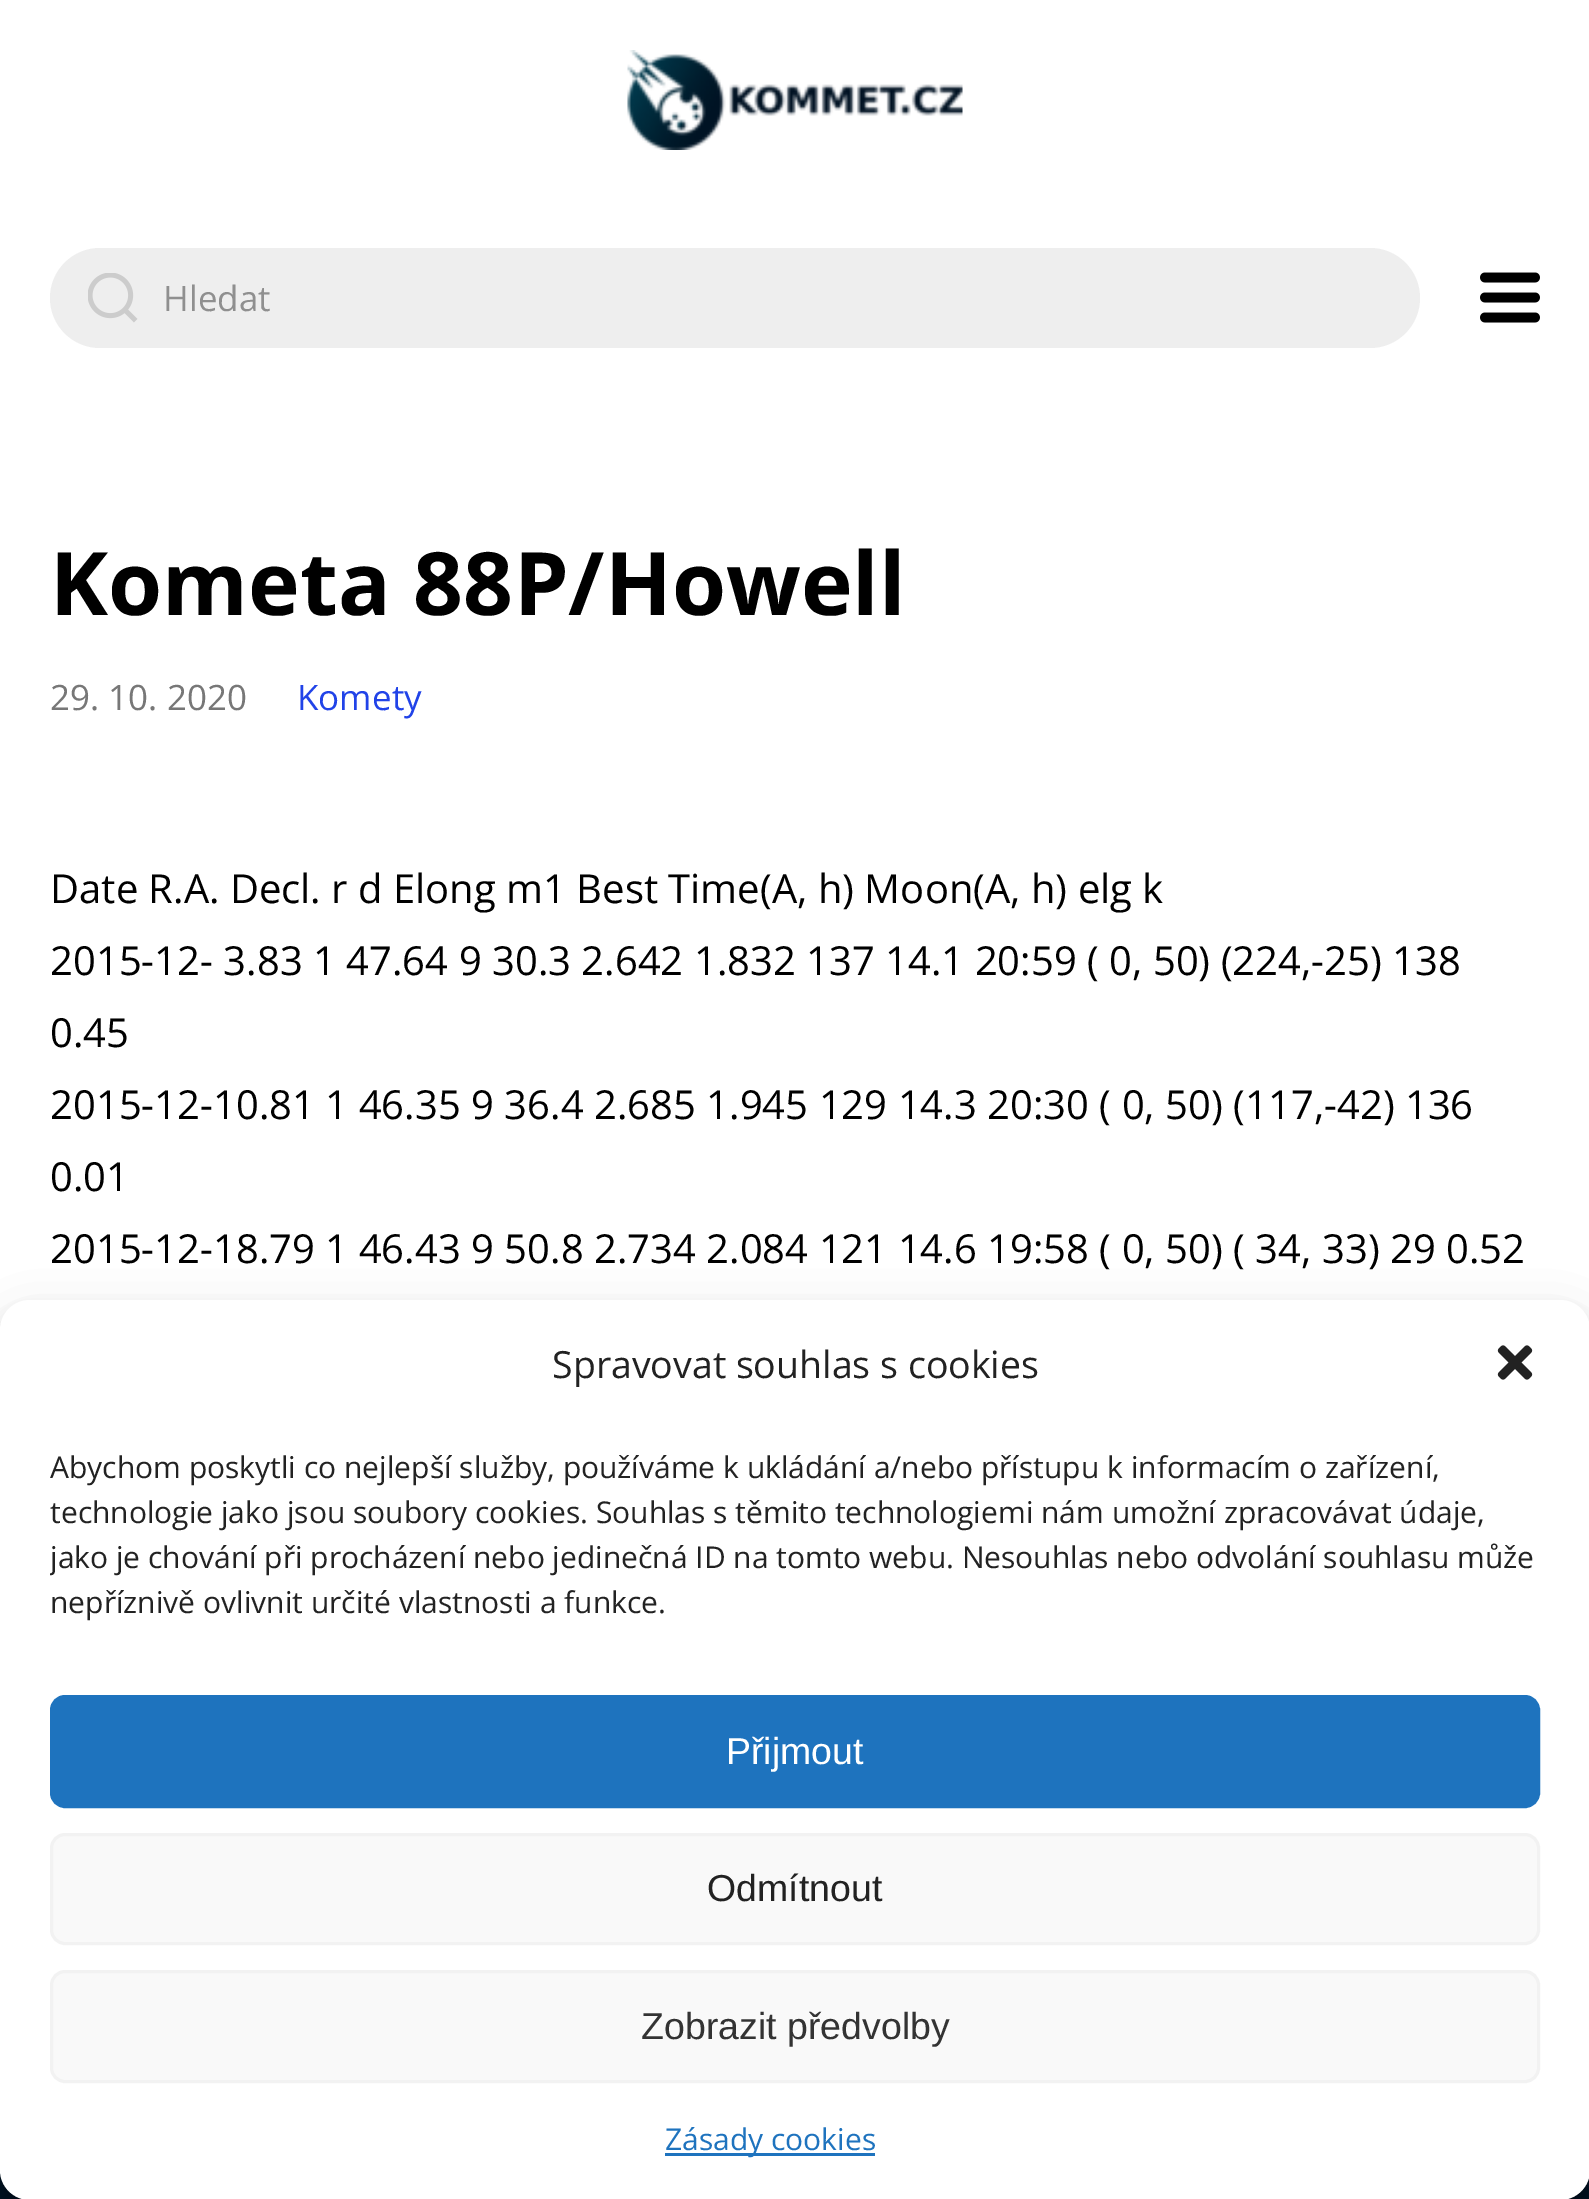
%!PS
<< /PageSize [1589 2199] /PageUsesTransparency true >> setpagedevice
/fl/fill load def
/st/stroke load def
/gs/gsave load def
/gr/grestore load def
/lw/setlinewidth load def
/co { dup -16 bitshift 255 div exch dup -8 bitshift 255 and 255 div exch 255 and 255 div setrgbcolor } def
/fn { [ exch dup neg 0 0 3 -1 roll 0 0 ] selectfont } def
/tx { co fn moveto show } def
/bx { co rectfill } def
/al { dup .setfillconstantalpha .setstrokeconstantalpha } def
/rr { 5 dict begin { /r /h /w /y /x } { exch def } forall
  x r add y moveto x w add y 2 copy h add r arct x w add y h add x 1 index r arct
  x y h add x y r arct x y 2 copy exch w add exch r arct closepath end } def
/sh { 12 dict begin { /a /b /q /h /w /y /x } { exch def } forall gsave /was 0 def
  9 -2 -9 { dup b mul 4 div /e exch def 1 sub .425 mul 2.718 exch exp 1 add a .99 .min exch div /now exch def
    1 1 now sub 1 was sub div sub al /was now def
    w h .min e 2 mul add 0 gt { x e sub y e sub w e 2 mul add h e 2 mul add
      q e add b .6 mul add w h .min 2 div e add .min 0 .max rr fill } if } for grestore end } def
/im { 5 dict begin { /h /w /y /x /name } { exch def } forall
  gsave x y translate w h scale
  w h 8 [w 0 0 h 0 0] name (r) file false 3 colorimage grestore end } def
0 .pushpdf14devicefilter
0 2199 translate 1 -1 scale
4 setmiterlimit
0 0 1589 2199 16#FFFFFF bx
(media/1.raw) 0 2170 1589 29 im
(media/2.raw) 627 50 336 100 im
16#EEEEEE co
50 248 1370 100 50 rr fl
(media/3.raw) 88 273 50 50 im
(media/4.raw) 1480 272 60 51 im
16#000000 co
0 1315 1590 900 30 7.5 .23 sh
0 1325 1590 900 30 25 .19 sh
16#FFFFFF co
0 1300 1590 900 30 rr fl
(media/5.raw) 1497 1345 36 35 im
16#1E73BE co
51.5 1696.5 1487 110 13.5 rr gs fl gr
3 lw
st
16#F9F9F9 co
51.5 1834.5 1487 109 13.5 rr gs fl gr
16#F2F2F2 co
st
16#F9F9F9 co
51.5 1971.5 1487 110 13.5 rr gs fl gr
16#F2F2F2 co
st
665 2153 210 3 16#1E73BE bx
(Hledat) 163 311 /OpenSans-Regular 35 16#8F8F8F tx
(Kometa 88P/Howell) 50 615 /OpenSans-Bold 87.5 16#000000 tx
(29. 10. 2020) 50 710 /OpenSans-Regular 35 16#777777 tx
(Komety) 297 710 /OpenSans-Regular 35 16#2143E8 tx
(Date R.A. Decl. r d Elong m1 Best Time\(A, h\) Moon\(A, h\) elg k) 50 903 /OpenSans-Regular 40 16#000000 tx
(2015-12- 3.83 1 47.64 9 30.3 2.642 1.832 137 14.1 20:59 \( 0, 50\) \(224,-25\) 138) 50 975 /OpenSans-Regular 40 16#000000 tx
(0.45) 50 1047 /OpenSans-Regular 40 16#000000 tx
(2015-12-10.81 1 46.35 9 36.4 2.685 1.945 129 14.3 20:30 \( 0, 50\) \(117,-42\) 136) 50 1119 /OpenSans-Regular 40 16#000000 tx
(0.01) 50 1191 /OpenSans-Regular 40 16#000000 tx
(2015-12-18.79 1 46.43 9 50.8 2.734 2.084 121 14.6 19:58 \( 0, 50\) \( 34, 33\) 29 0.52) 50 1263 /OpenSans-Regular 40 16#000000 tx
(Spravovat souhlas s cookies) 552 1378 /OpenSans-Regular 37.5 16#222222 tx
(Abychom poskytli co nejlepší služby, používáme k ukládání a/nebo přístupu k informacím o zařízení,) 50 1478 /OpenSans-Regular 30 16#222222 tx
(technologie jako jsou soubory cookies. Souhlas s těmito technologiemi nám umožní zpracovávat údaje,) 50 1523 /OpenSans-Regular 30 16#222222 tx
gs
50 1445 1490 193 rectclip
(jako je chování při procházení nebo jedinečná ID na tomto webu. Nesouhlas nebo odvolání souhlasu může) 50 1568 /OpenSans-Regular 30 16#222222 tx
gr
(nepříznivě ovlivnit určité vlastnosti a funkce.) 50 1613 /OpenSans-Regular 30 16#222222 tx
(Přijmout) 726 1764 /LiberationSans-Regular 37.5 16#FFFFFF tx
(Odmítnout) 707 1901 /LiberationSans-Regular 37.5 16#222222 tx
(Zobrazit předvolby) 641 2039 /LiberationSans-Regular 37.5 16#333333 tx
(Zásady cookies) 665 2150 /OpenSans-Regular 30 16#1E73BE tx
.poppdf14devicefilter showpage
